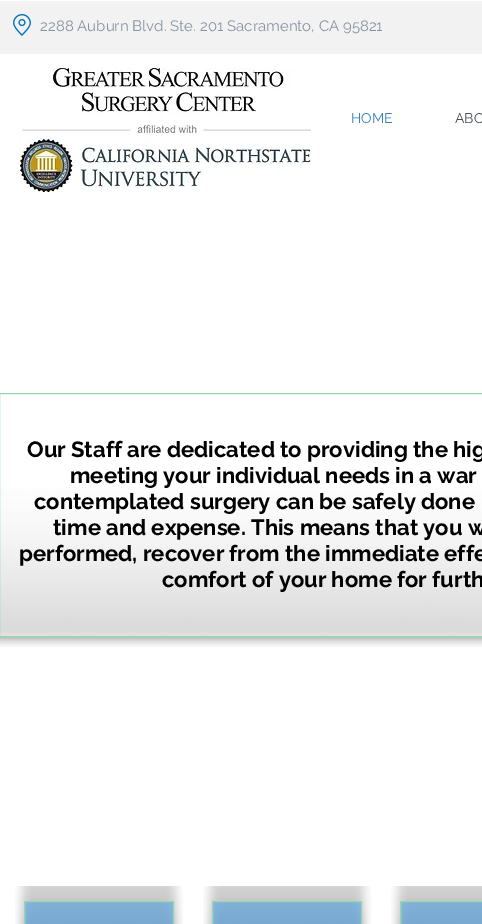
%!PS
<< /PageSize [482 924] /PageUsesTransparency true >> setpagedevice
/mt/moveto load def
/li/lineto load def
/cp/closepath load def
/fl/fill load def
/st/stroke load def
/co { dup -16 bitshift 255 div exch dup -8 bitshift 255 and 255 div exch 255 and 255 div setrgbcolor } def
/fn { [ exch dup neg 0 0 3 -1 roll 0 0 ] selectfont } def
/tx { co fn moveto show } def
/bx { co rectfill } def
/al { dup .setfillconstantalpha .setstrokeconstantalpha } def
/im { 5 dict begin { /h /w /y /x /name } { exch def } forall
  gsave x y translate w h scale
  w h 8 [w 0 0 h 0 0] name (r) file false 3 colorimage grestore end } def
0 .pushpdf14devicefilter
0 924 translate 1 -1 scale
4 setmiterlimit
0 0 482 924 16#FFFFFF bx
0 1 482 53 16#F2F2F2 bx
(media/1.raw) 13 14 18 22 im
(media/2.raw) 20 68 291 124 im
(media/3.raw) 0 487 482 160 im
16#93D9AD co
-.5 393.5 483 243 rectstroke
(media/4.raw) 15 886 44 38 im
(media/5.raw) 59 886 80 38 im
(media/6.raw) 139 886 44 38 im
0.5 al
16#3D9BE9 co
24.5 901.5 mt 173.5 901.5 li 173.5 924.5 li 24.5 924.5 li cp fl
1 al
16#93D9AD co
24.5 901.5 mt 173.5 901.5 li 173.5 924.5 li 24.5 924.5 li cp st
(media/4.raw) 203 886 44 38 im
(media/5.raw) 247 886 80 38 im
(media/6.raw) 327 886 44 38 im
0.5 al
16#3D9BE9 co
212.5 901.5 mt 361.5 901.5 li 361.5 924.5 li 212.5 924.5 li cp fl
1 al
16#93D9AD co
212.5 901.5 mt 361.5 901.5 li 361.5 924.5 li 212.5 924.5 li cp st
(media/4.raw) 391 886 44 38 im
(media/7.raw) 435 886 47 38 im
0.5 al
16#3D9BE9 co
400.5 901.5 mt 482.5 901.5 li 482.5 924.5 li 400.5 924.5 li cp fl
1 al
16#93D9AD co
400.5 901.5 mt 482.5 901.5 li 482.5 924.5 li 400.5 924.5 li cp st
(2288 Auburn Blvd. Ste. 201 Sacramento, CA 95821) 40 31 /Raleway-Regular 15 16#8892A1 tx
(HOME) 351 123 /Raleway-Regular 14 16#387FBB tx
(ABO) 455 123 /Raleway-Regular 14 16#484D56 tx
(Our Staff are dedicated to providing the hig) 27 457 /Raleway-Bold 22 16#000000 tx
(meeting your individual needs in a war) 70 483 /Raleway-Bold 22 16#000000 tx
(contemplated surgery can be safely done) 34 509 /Raleway-Bold 22 16#000000 tx
(time and expense. This means that you w) 53 535 /Raleway-Bold 22 16#000000 tx
(performed, recover from the immediate effe) 19 561 /Raleway-Bold 22 16#000000 tx
(comfort of your home for furth) 162 587 /Raleway-Bold 22 16#000000 tx
.poppdf14devicefilter showpage
